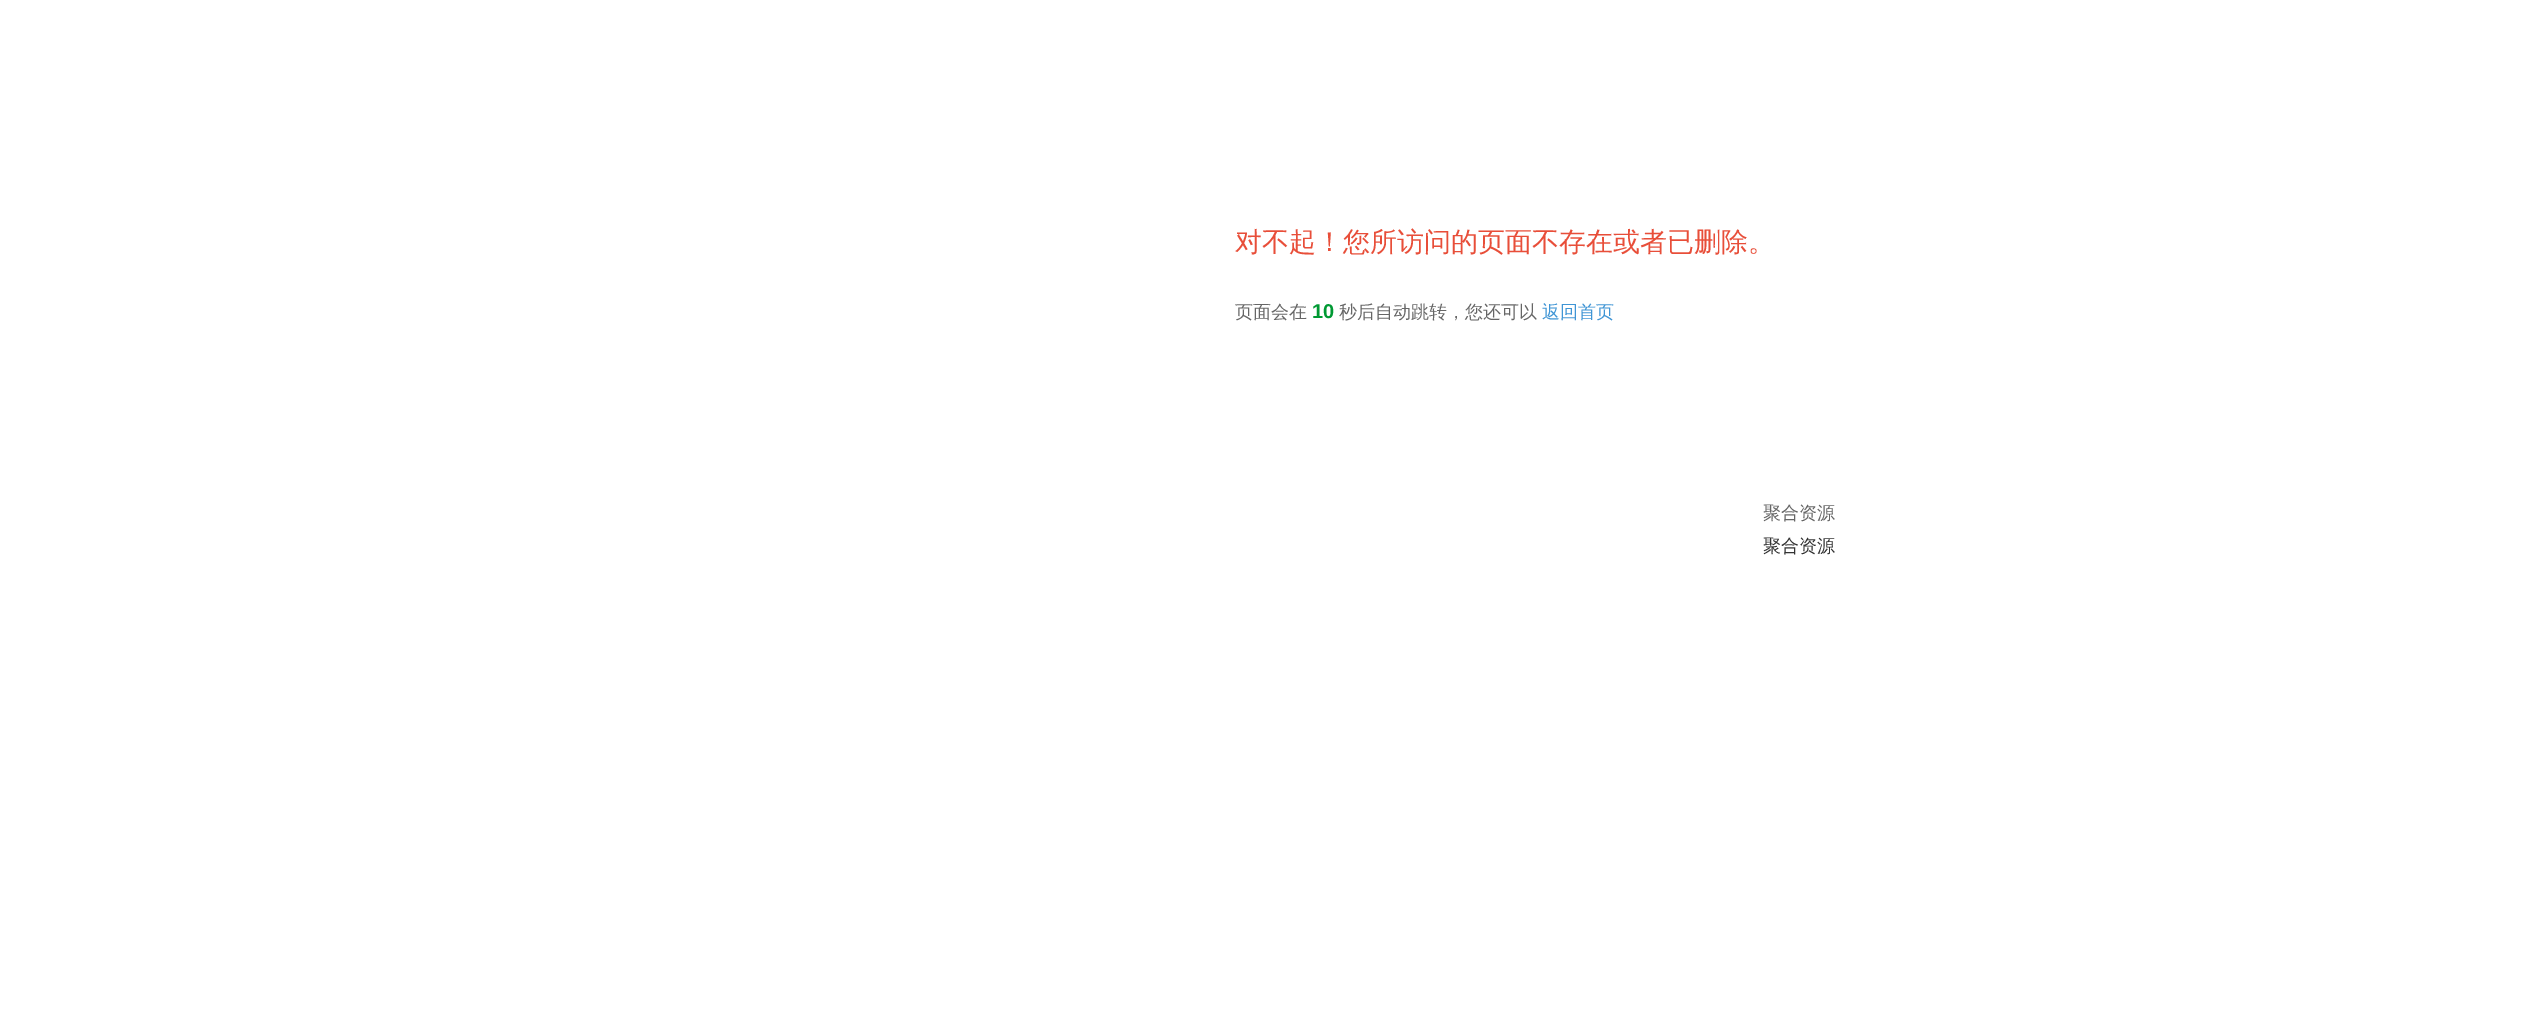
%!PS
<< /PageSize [2538 1012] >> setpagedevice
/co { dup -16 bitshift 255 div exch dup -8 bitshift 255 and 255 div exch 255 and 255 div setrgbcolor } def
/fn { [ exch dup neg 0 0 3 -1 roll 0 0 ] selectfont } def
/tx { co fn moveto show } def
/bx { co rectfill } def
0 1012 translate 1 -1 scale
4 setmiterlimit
0 0 2538 1012 16#FFFFFF bx
(对不起！您所访问的页面不存在或者已删除。) 1235 251 /WenQuanYiZenHei-Medium 27 16#E84E39 tx
(页面会在) 1235 318 /WenQuanYiZenHei-Medium 18 16#666666 tx
(10) 1312 318 /LiberationSans-Bold 20 16#009933 tx
(秒后自动跳转，您还可以) 1339 318 /WenQuanYiZenHei-Medium 18 16#666666 tx
(返回首页) 1542 318 /WenQuanYiZenHei-Medium 18 16#3F95D5 tx
(聚合资源) 1763 519 /WenQuanYiZenHei-Medium 18 16#666666 tx
(聚合资源) 1763 552 /WenQuanYiZenHei-Medium 18 16#333333 tx
showpage
